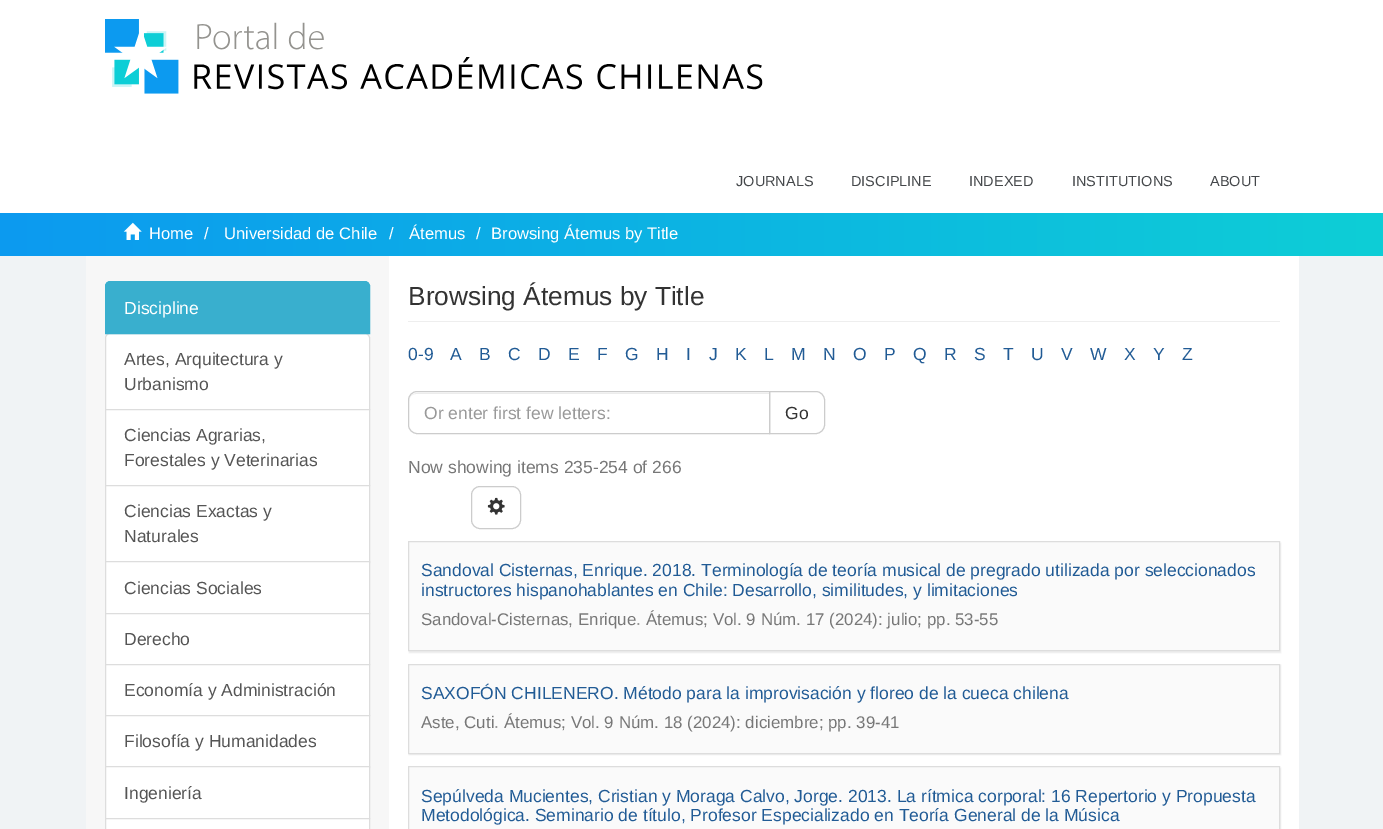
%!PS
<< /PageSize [1383 829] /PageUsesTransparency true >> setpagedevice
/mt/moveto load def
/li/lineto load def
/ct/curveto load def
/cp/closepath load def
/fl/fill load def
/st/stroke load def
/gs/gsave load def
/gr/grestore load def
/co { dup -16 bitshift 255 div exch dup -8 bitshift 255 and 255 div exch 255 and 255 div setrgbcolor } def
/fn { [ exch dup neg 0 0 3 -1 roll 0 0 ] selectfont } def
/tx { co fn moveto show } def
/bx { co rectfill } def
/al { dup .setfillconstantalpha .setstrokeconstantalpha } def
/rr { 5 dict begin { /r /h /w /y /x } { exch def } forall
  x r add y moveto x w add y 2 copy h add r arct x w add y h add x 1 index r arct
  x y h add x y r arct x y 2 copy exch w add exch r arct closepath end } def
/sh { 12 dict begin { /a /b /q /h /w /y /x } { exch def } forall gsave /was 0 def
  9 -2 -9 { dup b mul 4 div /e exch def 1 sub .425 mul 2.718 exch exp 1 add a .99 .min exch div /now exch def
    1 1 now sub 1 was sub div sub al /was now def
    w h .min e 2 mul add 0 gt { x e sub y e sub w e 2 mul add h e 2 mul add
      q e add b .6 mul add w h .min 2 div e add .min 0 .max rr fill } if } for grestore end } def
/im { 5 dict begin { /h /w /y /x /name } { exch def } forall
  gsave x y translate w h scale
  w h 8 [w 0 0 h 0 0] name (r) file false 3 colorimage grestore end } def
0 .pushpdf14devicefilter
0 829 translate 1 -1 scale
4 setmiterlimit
0 0 1383 829 16#F0F3F5 bx
0 0 1383 213 16#FFFFFF bx
(media/1.raw) 105 19 658 75 im
gs 0 213 mt 1383 213 li 1383 256 li 0 256 li cp clip newpath
<< /ShadingType 2 /ColorSpace /DeviceRGB /Coords [0 234 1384 234] /Extend [true true] /Function << /FunctionType 2 /Domain [0 1] /C0 [.047 .604 .941] /C1 [.051 .808 .839] /N 1 >> >> shfill gr
(media/2.raw) 123 222 19 18 im
86 256 303 573 16#F7F7F7 bx
16#FFFFFF co
110 333.5 mt 365 333.5 li 367.5 333.5 369.5 335.5 369.5 338 ct 369.5 409.5 li 105.5 409.5 li 105.5 338 li 105.5 335.5 107.5 333.5 110 333.5 ct cp gs fl gr
16#DDDDDD co
st
16#39AFCE co
110 281.5 mt 365 281.5 li 367.5 281.5 369.5 283.5 369.5 286 ct 369.5 333.5 li 105.5 333.5 li 105.5 286 li 105.5 283.5 107.5 281.5 110 281.5 ct cp gs fl gr
st
16#FFFFFF co
105.5 409.5 mt 369.5 409.5 li 369.5 485.5 li 105.5 485.5 li cp gs fl gr
16#DDDDDD co
st
106 486 263 75 16#FFFFFF bx
16#DDDDDD co
105.5 485.5 264 77 rectstroke
16#FFFFFF co
105.5 561.5 mt 369.5 561.5 li 369.5 613.5 li 105.5 613.5 li cp gs fl gr
16#DDDDDD co
st
16#FFFFFF co
105.5 613.5 mt 369.5 613.5 li 369.5 664.5 li 105.5 664.5 li cp gs fl gr
16#DDDDDD co
st
16#FFFFFF co
105.5 664.5 mt 369.5 664.5 li 369.5 715.5 li 105.5 715.5 li cp gs fl gr
16#DDDDDD co
st
106 716 263 50 16#FFFFFF bx
16#DDDDDD co
105.5 715.5 264 52 rectstroke
16#FFFFFF co
105.5 766.5 mt 369.5 766.5 li 369.5 818.5 li 105.5 818.5 li cp gs fl gr
16#DDDDDD co
st
16#FFFFFF co
105.5 818.5 mt 369.5 818.5 li 369.5 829.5 li 105.5 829.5 li cp gs fl gr
16#DDDDDD co
st
389 256 910 573 16#FFFFFF bx
408 321 872 1 16#EEEEEE bx
16#CCCCCC co
769.5 391.5 mt 816 391.5 li 820.5 391.5 824.5 395.5 824.5 400 ct 824.5 425 li 824.5 429.5 820.5 433.5 816 433.5 ct 769.5 433.5 li cp st
16#FFFFFF co
417 391 mt 770 391 li 770 434 li 417 434 li 412 434 408 430 408 425 ct 408 400 li 408 395 412 391 417 391 ct cp fl
16#ECECEC co
416 394 mt 769 394 li 769 393 li 417 393 li 413 393 409 397 409 401 ct 409 397 412 394 416 394 ct cp fl
16#CCCCCC co
417 391.5 mt 769.5 391.5 li 769.5 433.5 li 417 433.5 li 412.5 433.5 408.5 429.5 408.5 425 ct 408.5 400 li 408.5 395.5 412.5 391.5 417 391.5 ct cp st
471.5 486.5 49 42 8.5 rr st
(media/3.raw) 487 497 18 18 im
16#AAAAAA co
409 543 872 110 0 .5 .21 sh
16#FAFAFA co
408.5 541.5 mt 1279.5 541.5 li 1279.5 650.5 li 408.5 650.5 li cp gs fl gr
16#DDDDDD co
st
gs
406 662 mt 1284 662 li 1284 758 li 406 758 li cp 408 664 mt 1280 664 li 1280 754 li 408 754 li cp eoclip newpath
16#AAAAAA co
409 665 872 90 0 .5 .21 sh
gr
0.21 al
16#E6E6E6 co
408.5 664.5 mt 1279.5 664.5 li 1279.5 753.5 li 408.5 753.5 li cp fl
1 al
16#DDDDDD co
408.5 664.5 mt 1279.5 664.5 li 1279.5 753.5 li 408.5 753.5 li cp st
16#AAAAAA co
409 768 872 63 0 .5 .21 sh
16#FAFAFA co
408.5 766.5 mt 1279.5 766.5 li 1279.5 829.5 li 408.5 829.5 li cp gs fl gr
16#DDDDDD co
st
(JOURNALS) 736 186 /LiberationSans-Regular 14.5 16#44474A tx
(DISCIPLINE) 851 186 /LiberationSans-Regular 14.5 16#44474A tx
(INDEXED) 969 186 /LiberationSans-Regular 14.5 16#44474A tx
(INSTITUTIONS) 1072 186 /LiberationSans-Regular 14.5 16#44474A tx
(ABOUT) 1210 186 /LiberationSans-Regular 14.5 16#44474A tx
(Home) 149 239 /LiberationSans-Regular 16.6 16#FFFFFF tx
(/) 204 239 /LiberationSans-Regular 16.6 16#FFFFFF tx
(Universidad de Chile) 224 239 /LiberationSans-Regular 16.6 16#FFFFFF tx
(/) 389 239 /LiberationSans-Regular 16.6 16#FFFFFF tx
(Átemus) 409 239 /LiberationSans-Regular 16.6 16#FFFFFF tx
(/) 476 239 /LiberationSans-Regular 16.6 16#FFFFFF tx
(Browsing Átemus by Title) 491 239 /LiberationSans-Regular 16.6 16#FFFFFF tx
(Discipline) 124 314 /LiberationSans-Regular 17.5 16#FFFFFF tx
(Artes, Arquitectura y) 124 365 /LiberationSans-Regular 17.5 16#555555 tx
(Urbanismo) 124 390 /LiberationSans-Regular 17.5 16#555555 tx
(Ciencias Agrarias,) 124 441 /LiberationSans-Regular 17.5 16#555555 tx
(Forestales y Veterinarias) 124 466 /LiberationSans-Regular 17.5 16#555555 tx
(Ciencias Exactas y) 124 517 /LiberationSans-Regular 17.5 16#555555 tx
(Naturales) 124 542 /LiberationSans-Regular 17.5 16#555555 tx
(Ciencias Sociales) 124 594 /LiberationSans-Regular 17.5 16#555555 tx
(Derecho) 124 645 /LiberationSans-Regular 17.5 16#555555 tx
(Economía y Administración) 124 696 /LiberationSans-Regular 17.5 16#555555 tx
(Filosofía y Humanidades) 124 747 /LiberationSans-Regular 17.5 16#555555 tx
(Ingeniería) 124 799 /LiberationSans-Regular 17.5 16#555555 tx
(Browsing Átemus by Title) 408 305 /LiberationSans-Regular 26.25 16#333333 tx
(0-9) 408 360 /LiberationSans-Regular 17.5 16#215B95 tx
(A) 450 360 /LiberationSans-Regular 17.5 16#215B95 tx
(B) 479 360 /LiberationSans-Regular 17.5 16#215B95 tx
(C) 508 360 /LiberationSans-Regular 17.5 16#215B95 tx
(D) 538 360 /LiberationSans-Regular 17.5 16#215B95 tx
(E) 568 360 /LiberationSans-Regular 17.5 16#215B95 tx
(F) 597 360 /LiberationSans-Regular 17.5 16#215B95 tx
(G) 625 360 /LiberationSans-Regular 17.5 16#215B95 tx
(H) 656 360 /LiberationSans-Regular 17.5 16#215B95 tx
(I) 686 360 /LiberationSans-Regular 17.5 16#215B95 tx
(J) 709 360 /LiberationSans-Regular 17.5 16#215B95 tx
(K) 735 360 /LiberationSans-Regular 17.5 16#215B95 tx
(L) 764 360 /LiberationSans-Regular 17.5 16#215B95 tx
(M) 791 360 /LiberationSans-Regular 17.5 16#215B95 tx
(N) 823 360 /LiberationSans-Regular 17.5 16#215B95 tx
(O) 853 360 /LiberationSans-Regular 17.5 16#215B95 tx
(P) 884 360 /LiberationSans-Regular 17.5 16#215B95 tx
(Q) 913 360 /LiberationSans-Regular 17.5 16#215B95 tx
(R) 944 360 /LiberationSans-Regular 17.5 16#215B95 tx
(S) 974 360 /LiberationSans-Regular 17.5 16#215B95 tx
(T) 1003 360 /LiberationSans-Regular 17.5 16#215B95 tx
(U) 1031 360 /LiberationSans-Regular 17.5 16#215B95 tx
(V) 1061 360 /LiberationSans-Regular 17.5 16#215B95 tx
(W) 1090 360 /LiberationSans-Regular 17.5 16#215B95 tx
(X) 1124 360 /LiberationSans-Regular 17.5 16#215B95 tx
(Y) 1153 360 /LiberationSans-Regular 17.5 16#215B95 tx
(Z) 1182 360 /LiberationSans-Regular 17.5 16#215B95 tx
(Or enter first few letters:) 424 419 /LiberationSans-Regular 17.5 16#999999 tx
(Go) 785 419 /LiberationSans-Regular 17.5 16#333333 tx
(Now showing items 235-254 of 266) 408 473 /LiberationSans-Regular 17.5 16#777777 tx
(Sandoval Cisternas, Enrique. 2018. Terminología de teoría musical de pregrado utilizada por seleccionados) 421 576 /LiberationSans-Regular 17.5 16#215B95 tx
(instructores hispanohablantes en Chile: Desarrollo, similitudes, y limitaciones) 421 596 /LiberationSans-Regular 17.5 16#215B95 tx
(Sandoval-Cisternas, Enrique) 421 625 /LiberationSans-Regular 16.9 16#777777 tx
(.) 636 625 /LiberationSans-Regular 17.5 16#999999 tx
(Átemus; Vol. 9 Núm. 17 \(2024\): julio; pp. 53-55) 646 625 /LiberationSans-Regular 16.9 16#777777 tx
(SAXOFÓN CHILENERO. Método para la improvisación y floreo de la cueca chilena) 421 699 /LiberationSans-Regular 17.5 16#215B95 tx
(Aste, Cuti) 421 728 /LiberationSans-Regular 16.9 16#777777 tx
(.) 494 728 /LiberationSans-Regular 17.5 16#999999 tx
(Átemus; Vol. 9 Núm. 18 \(2024\): diciembre; pp. 39-41) 504 728 /LiberationSans-Regular 16.9 16#777777 tx
(Sepúlveda Mucientes, Cristian y Moraga Calvo, Jorge. 2013. La rítmica corporal: 16 Repertorio y Propuesta) 421 802 /LiberationSans-Regular 17.5 16#215B95 tx
(Metodológica. Seminario de título, Profesor Especializado en Teoría General de la Música) 421 821 /LiberationSans-Regular 17.5 16#215B95 tx
.poppdf14devicefilter showpage
